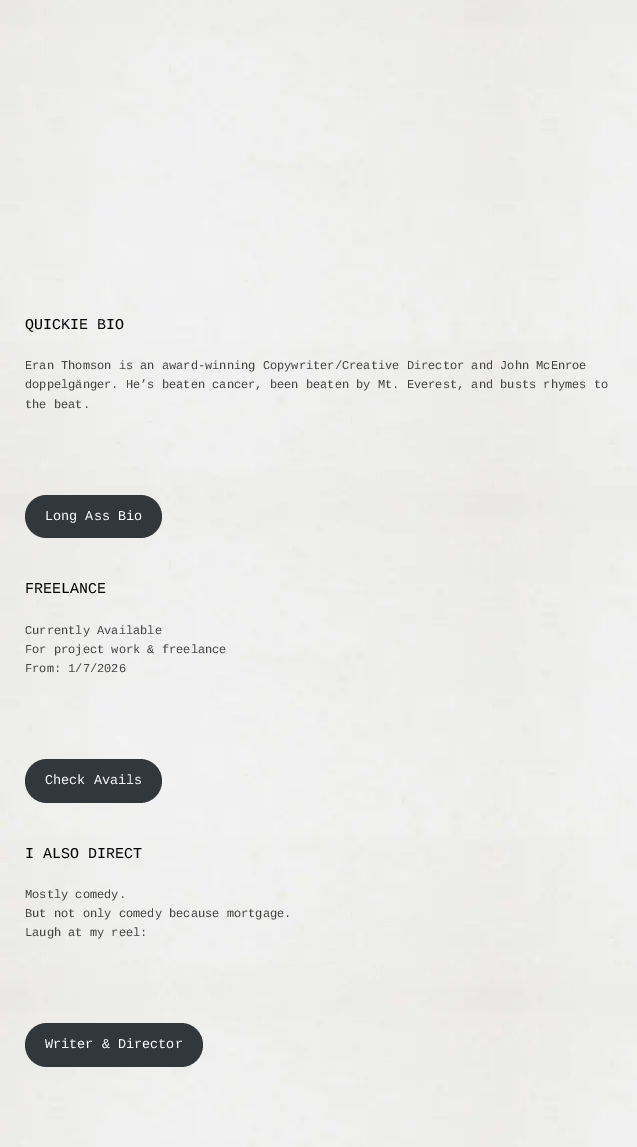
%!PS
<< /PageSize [637 1147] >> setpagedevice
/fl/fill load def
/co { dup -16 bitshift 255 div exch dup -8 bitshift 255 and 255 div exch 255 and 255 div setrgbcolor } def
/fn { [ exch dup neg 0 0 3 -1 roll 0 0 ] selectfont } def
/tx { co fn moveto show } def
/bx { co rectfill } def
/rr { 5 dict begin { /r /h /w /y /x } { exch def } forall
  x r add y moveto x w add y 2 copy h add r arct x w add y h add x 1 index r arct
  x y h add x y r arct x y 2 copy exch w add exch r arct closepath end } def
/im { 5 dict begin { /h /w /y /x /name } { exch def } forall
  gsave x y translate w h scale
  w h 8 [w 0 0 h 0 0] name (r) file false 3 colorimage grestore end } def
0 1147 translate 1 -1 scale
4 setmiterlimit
0 0 637 1147 16#FFFFFF bx
(media/1.raw) 0 0 637 1147 im
16#32373C co
25 495 137 43 21.5 rr fl
25 759 137 44 22 rr fl
25 1023 178 44 22 rr fl
(QUICKIE BIO) 25 329 /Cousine-Regular 15 16#000000 tx
(Eran Thomson is an award-winning Copywriter/Creative Director and John McEnroe) 25 369 /Cousine-Regular 12 16#444444 tx
(doppelgänger. He’s beaten cancer, been beaten by Mt. Everest, and busts rhymes to) 25 388 /Cousine-Regular 12 16#444444 tx
(the beat.) 25 408 /Cousine-Regular 12 16#444444 tx
(Long Ass Bio) 45 520 /Cousine-Regular 13.5 16#FFFFFF tx
(FREELANCE) 25 593 /Cousine-Regular 15 16#000000 tx
(Currently Available) 25 634 /Cousine-Regular 12 16#444444 tx
(For project work & freelance) 25 653 /Cousine-Regular 12 16#444444 tx
(From: 1/7/2026) 25 672 /Cousine-Regular 12 16#444444 tx
(Check Avails) 45 784 /Cousine-Regular 13.5 16#FFFFFF tx
(I ALSO DIRECT) 25 858 /Cousine-Regular 15 16#000000 tx
(Mostly comedy.) 25 898 /Cousine-Regular 12 16#444444 tx
(But not only comedy because mortgage.) 25 917 /Cousine-Regular 12 16#444444 tx
(Laugh at my reel:) 25 936 /Cousine-Regular 12 16#444444 tx
(Writer & Director) 45 1048 /Cousine-Regular 13.5 16#FFFFFF tx
showpage
